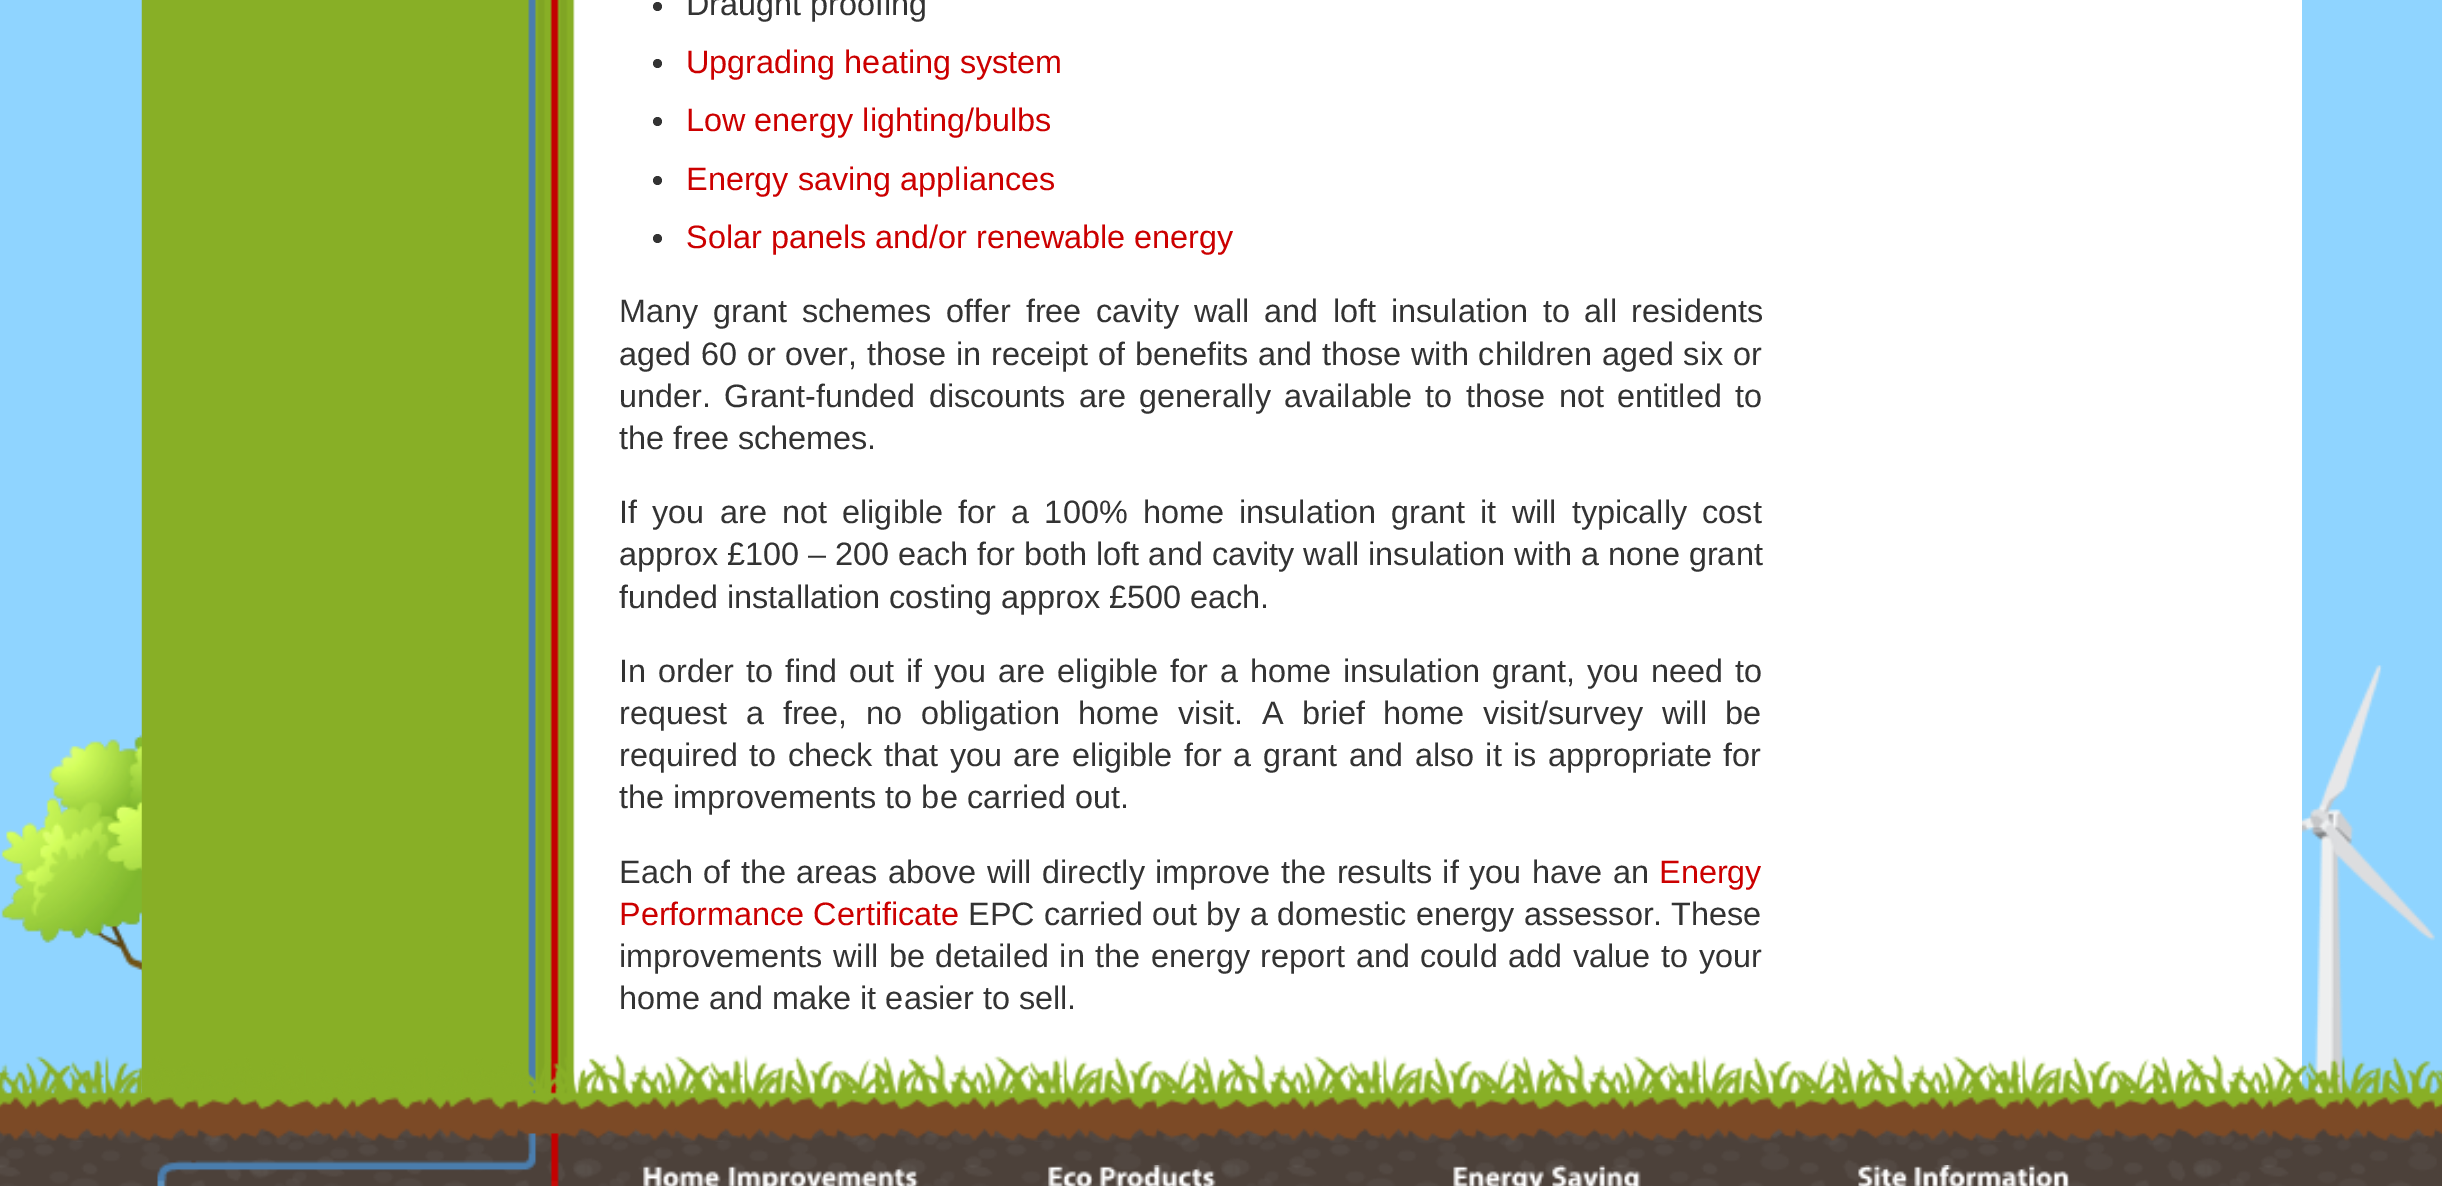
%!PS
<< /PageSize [2442 1186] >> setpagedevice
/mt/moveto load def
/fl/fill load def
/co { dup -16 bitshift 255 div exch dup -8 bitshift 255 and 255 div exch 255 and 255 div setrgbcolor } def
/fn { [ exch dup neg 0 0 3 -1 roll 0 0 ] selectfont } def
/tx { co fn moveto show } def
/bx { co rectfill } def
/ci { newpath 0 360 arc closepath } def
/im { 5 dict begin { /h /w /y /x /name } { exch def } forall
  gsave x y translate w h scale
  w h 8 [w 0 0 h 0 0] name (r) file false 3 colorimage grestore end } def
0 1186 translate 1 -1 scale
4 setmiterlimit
0 0 2442 1186 16#8FD4FF bx
(media/1.raw) 1 734 141 238 im
575 0 1727 1094 16#FFFFFF bx
(media/2.raw) 141 0 434 1094 im
16#333333 co
657.5 6.5 4.5 ci fl
657.5 63.5 4.5 ci fl
657.5 121.5 4.5 ci fl
657.5 180.5 4.5 ci fl
657.5 238.5 4.5 ci fl
(media/3.raw) 2302 665 133 429 im
0 1128 2442 58 16#4C413A bx
(media/5.raw) 0 1128 2437 58 im
(media/4.raw) 0 1054 2442 88 im
(media/6.raw) 157 1133 402 53 im
(media/7.raw) 643 1166 78 20 im
(media/8.raw) 728 1166 191 20 im
(media/9.raw) 1048 1166 46 20 im
(media/10.raw) 1099 1165 117 21 im
(media/11.raw) 1453 1166 92 20 im
(media/12.raw) 1552 1165 89 21 im
(media/13.raw) 1858 1165 51 21 im
(media/14.raw) 1914 1165 156 21 im
(Draught proofing) 686 15 /LiberationSans-Regular 32.4 16#333333 tx
(Upgrading heating system) 686 73 /LiberationSans-Regular 32.4 16#CC0000 tx
(Low energy lighting/bulbs) 686 131 /LiberationSans-Regular 32.4 16#CC0000 tx
(Energy saving appliances) 686 190 /LiberationSans-Regular 32.4 16#CC0000 tx
(Solar panels and/or renewable energy) 686 248 /LiberationSans-Regular 32.4 16#CC0000 tx
16#333333 co
619 322 mt 5.75 0 32 (Many grant schemes offer free cavity wall and loft insulation to all residents) widthshow
619 365 mt .75 0 32 (aged 60 or over, those in receipt of benefits and) widthshow
1322 365 mt .75 0 32 (those with children aged six or) widthshow
619 407 mt 4.5 0 32 (under. Grant-funded discounts are generally) widthshow
1284 407 mt 4.5 0 32 (available to those not entitled to) widthshow
(the free schemes.) 619 449 /LiberationSans-Regular 32.4 16#333333 tx
619 523 mt 6.25 0 32 (If you are not eligible for a 100% home insulation grant it will typically cost) widthshow
(approx £100 – 200 each for both loft and cavity wall insulation with a none grant) 619 565 /LiberationSans-Regular 32.4 16#333333 tx
(funded installation costing approx £500 each.) 619 608 /LiberationSans-Regular 32.4 16#333333 tx
619 682 mt 3 0 32 (In order to find out if you are eligible for a home insulation grant, you need to) widthshow
619 724 mt 9.75 0 32 (request a free, no obligation home visit. A brief) widthshow
1383 724 mt 9.75 0 32 (home visit/survey will be) widthshow
619 766 mt 2.5 0 32 (required to check that you are eligible for a grant) widthshow
1349 766 mt 2.5 0 32 (and also it is appropriate for) widthshow
(the improvements to be carried out.) 619 808 /LiberationSans-Regular 32.4 16#333333 tx
619 883 mt 1.5 0 32 (Each of the areas above will directly improve the results if you have an) widthshow
(Energy) 1659 883 /LiberationSans-Regular 32.4 16#CC0000 tx
(Performance Certificate) 619 925 /LiberationSans-Regular 32.4 16#CC0000 tx
(EPC carried out by) 968 925 /LiberationSans-Regular 32.4 16#333333 tx
(a domestic energy assessor. These) 1250 925 /LiberationSans-Regular 32.4 16#333333 tx
619 967 mt 1.6 0 32 (improvements will be detailed in the energy report and could add value to your) widthshow
(home and make it easier to sell.) 619 1009 /LiberationSans-Regular 32.4 16#333333 tx
showpage
